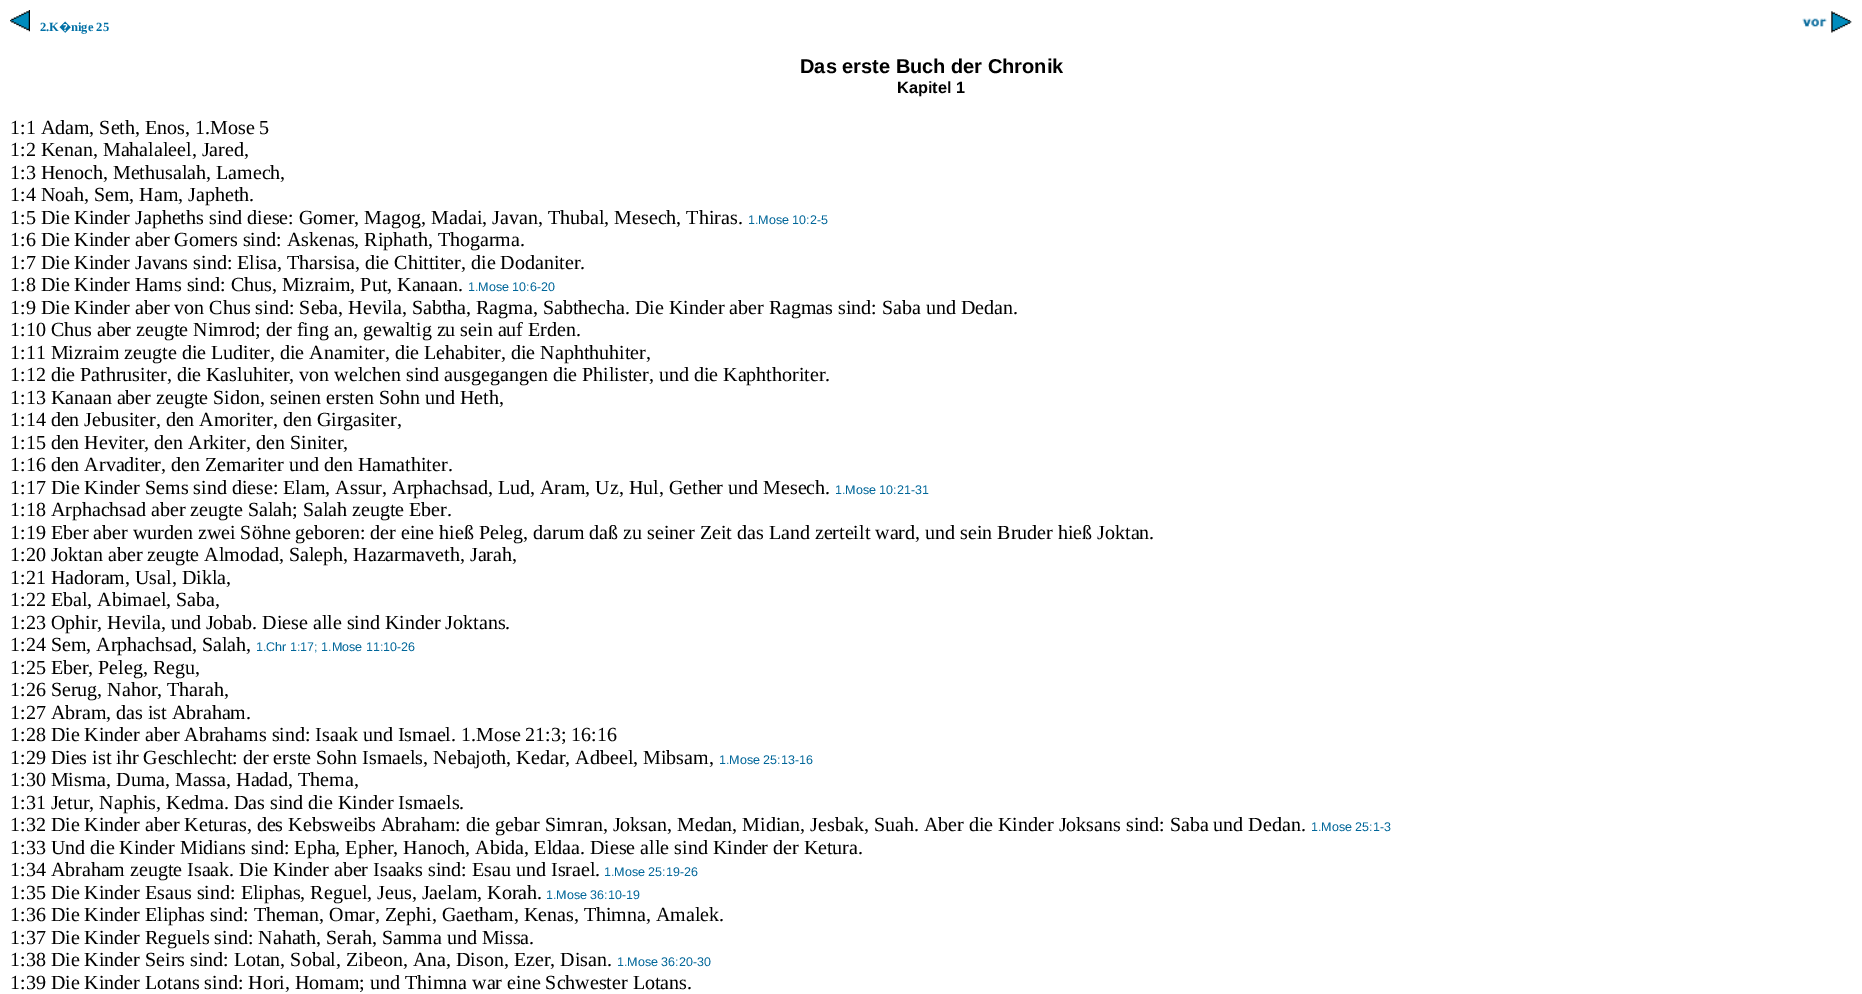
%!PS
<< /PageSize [1862 994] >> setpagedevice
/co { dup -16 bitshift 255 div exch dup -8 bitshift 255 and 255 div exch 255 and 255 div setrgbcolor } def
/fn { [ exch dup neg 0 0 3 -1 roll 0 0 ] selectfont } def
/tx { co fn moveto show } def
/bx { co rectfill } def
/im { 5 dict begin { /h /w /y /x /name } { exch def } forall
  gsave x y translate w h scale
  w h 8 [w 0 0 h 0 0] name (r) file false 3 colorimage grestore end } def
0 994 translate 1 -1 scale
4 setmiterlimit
0 0 1862 994 16#FFFFFF bx
(media/1.raw) 10 10 20 22 im
(media/2.raw) 1802 11 50 22 im
(2.K) 40 31 /LiberationSerif-Bold 12.5 16#0070A6 tx
(�) 59 31 /NotoSans-Bold 12.5 16#0070A6 tx
(nige 25) 71 31 /LiberationSerif-Bold 12.5 16#0070A6 tx
(Das erste Buch der Chronik) 800 73 /LiberationSans-Bold 20 16#000000 tx
(Kapitel 1) 897 93 /LiberationSans-Bold 16.25 16#000000 tx
(1:1 Adam, Seth, Enos, 1.Mose 5) 10 134 /LiberationSerif-Regular 20 16#000000 tx
(1:2 Kenan, Mahalaleel, Jared,) 10 156 /LiberationSerif-Regular 20 16#000000 tx
(1:3 Henoch, Methusalah, Lamech,) 10 179 /LiberationSerif-Regular 20 16#000000 tx
(1:4 Noah, Sem, Ham, Japheth.) 10 201 /LiberationSerif-Regular 20 16#000000 tx
(1:5 Die Kinder Japheths sind diese: Gomer, Magog, Madai, Javan, Thubal, Mesech, Thiras.) 10 224 /LiberationSerif-Regular 20 16#000000 tx
(1.Mose 10:2-5) 748 224 /LiberationSans-Regular 12.5 16#006699 tx
(1:6 Die Kinder aber Gomers sind: Askenas, Riphath, Thogarma.) 10 246 /LiberationSerif-Regular 20 16#000000 tx
(1:7 Die Kinder Javans sind: Elisa, Tharsisa, die Chittiter, die Dodaniter.) 10 269 /LiberationSerif-Regular 20 16#000000 tx
(1:8 Die Kinder Hams sind: Chus, Mizraim, Put, Kanaan.) 10 291 /LiberationSerif-Regular 20 16#000000 tx
(1.Mose 10:6-20) 468 291 /LiberationSans-Regular 12.5 16#006699 tx
(1:9 Die Kinder aber von Chus sind: Seba, Hevila, Sabtha, Ragma, Sabthecha. Die Kinder aber Ragmas sind: Saba und Dedan.) 10 314 /LiberationSerif-Regular 20 16#000000 tx
(1:10 Chus aber zeugte Nimrod; der fing an, gewaltig zu sein auf Erden.) 10 336 /LiberationSerif-Regular 20 16#000000 tx
(1:11 Mizraim zeugte die Luditer, die Anamiter, die Lehabiter, die Naphthuhiter,) 10 359 /LiberationSerif-Regular 20 16#000000 tx
(1:12 die Pathrusiter, die Kasluhiter, von welchen sind ausgegangen die Philister, und die Kaphthoriter.) 10 381 /LiberationSerif-Regular 20 16#000000 tx
(1:13 Kanaan aber zeugte Sidon, seinen ersten Sohn und Heth,) 10 404 /LiberationSerif-Regular 20 16#000000 tx
(1:14 den Jebusiter, den Amoriter, den Girgasiter,) 10 426 /LiberationSerif-Regular 20 16#000000 tx
(1:15 den Heviter, den Arkiter, den Siniter,) 10 449 /LiberationSerif-Regular 20 16#000000 tx
(1:16 den Arvaditer, den Zemariter und den Hamathiter.) 10 471 /LiberationSerif-Regular 20 16#000000 tx
(1:17 Die Kinder Sems sind diese: Elam, Assur, Arphachsad, Lud, Aram, Uz, Hul, Gether und Mesech.) 10 494 /LiberationSerif-Regular 20 16#000000 tx
(1.Mose 10:21-31) 835 494 /LiberationSans-Regular 12.5 16#006699 tx
(1:18 Arphachsad aber zeugte Salah; Salah zeugte Eber.) 10 516 /LiberationSerif-Regular 20 16#000000 tx
(1:19 Eber aber wurden zwei Söhne geboren: der eine hieß Peleg, darum daß zu seiner Zeit das Land zerteilt ward, und sein Bruder hieß Joktan.) 10 539 /LiberationSerif-Regular 20 16#000000 tx
(1:20 Joktan aber zeugte Almodad, Saleph, Hazarmaveth, Jarah,) 10 561 /LiberationSerif-Regular 20 16#000000 tx
(1:21 Hadoram, Usal, Dikla,) 10 584 /LiberationSerif-Regular 20 16#000000 tx
(1:22 Ebal, Abimael, Saba,) 10 606 /LiberationSerif-Regular 20 16#000000 tx
(1:23 Ophir, Hevila, und Jobab. Diese alle sind Kinder Joktans.) 10 629 /LiberationSerif-Regular 20 16#000000 tx
(1:24 Sem, Arphachsad, Salah,) 10 651 /LiberationSerif-Regular 20 16#000000 tx
(1.Chr 1:17; 1.Mose 11:10-26) 256 651 /LiberationSans-Regular 12.5 16#006699 tx
(1:25 Eber, Peleg, Regu,) 10 674 /LiberationSerif-Regular 20 16#000000 tx
(1:26 Serug, Nahor, Tharah,) 10 696 /LiberationSerif-Regular 20 16#000000 tx
(1:27 Abram, das ist Abraham.) 10 719 /LiberationSerif-Regular 20 16#000000 tx
(1:28 Die Kinder aber Abrahams sind: Isaak und Ismael. 1.Mose 21:3; 16:16) 10 741 /LiberationSerif-Regular 20 16#000000 tx
(1:29 Dies ist ihr Geschlecht: der erste Sohn Ismaels, Nebajoth, Kedar, Adbeel, Mibsam,) 10 764 /LiberationSerif-Regular 20 16#000000 tx
(1.Mose 25:13-16) 719 764 /LiberationSans-Regular 12.5 16#006699 tx
(1:30 Misma, Duma, Massa, Hadad, Thema,) 10 786 /LiberationSerif-Regular 20 16#000000 tx
(1:31 Jetur, Naphis, Kedma. Das sind die Kinder Ismaels.) 10 809 /LiberationSerif-Regular 20 16#000000 tx
(1:32 Die Kinder aber Keturas, des Kebsweibs Abraham: die gebar Simran, Joksan, Medan, Midian, Jesbak, Suah. Aber die Kinder Joksans sind: Saba und Dedan.) 10 831 /LiberationSerif-Regular 20 16#000000 tx
(1.Mose 25:1-3) 1311 831 /LiberationSans-Regular 12.5 16#006699 tx
(1:33 Und die Kinder Midians sind: Epha, Epher, Hanoch, Abida, Eldaa. Diese alle sind Kinder der Ketura.) 10 854 /LiberationSerif-Regular 20 16#000000 tx
(1:34 Abraham zeugte Isaak. Die Kinder aber Isaaks sind: Esau und Israel.) 10 876 /LiberationSerif-Regular 20 16#000000 tx
(1.Mose 25:19-26) 604 876 /LiberationSans-Regular 12.5 16#006699 tx
(1:35 Die Kinder Esaus sind: Eliphas, Reguel, Jeus, Jaelam, Korah.) 10 899 /LiberationSerif-Regular 20 16#000000 tx
(1.Mose 36:10-19) 546 899 /LiberationSans-Regular 12.5 16#006699 tx
(1:36 Die Kinder Eliphas sind: Theman, Omar, Zephi, Gaetham, Kenas, Thimna, Amalek.) 10 921 /LiberationSerif-Regular 20 16#000000 tx
(1:37 Die Kinder Reguels sind: Nahath, Serah, Samma und Missa.) 10 944 /LiberationSerif-Regular 20 16#000000 tx
(1:38 Die Kinder Seirs sind: Lotan, Sobal, Zibeon, Ana, Dison, Ezer, Disan.) 10 966 /LiberationSerif-Regular 20 16#000000 tx
(1.Mose 36:20-30) 617 966 /LiberationSans-Regular 12.5 16#006699 tx
(1:39 Die Kinder Lotans sind: Hori, Homam; und Thimna war eine Schwester Lotans.) 10 989 /LiberationSerif-Regular 20 16#000000 tx
showpage
